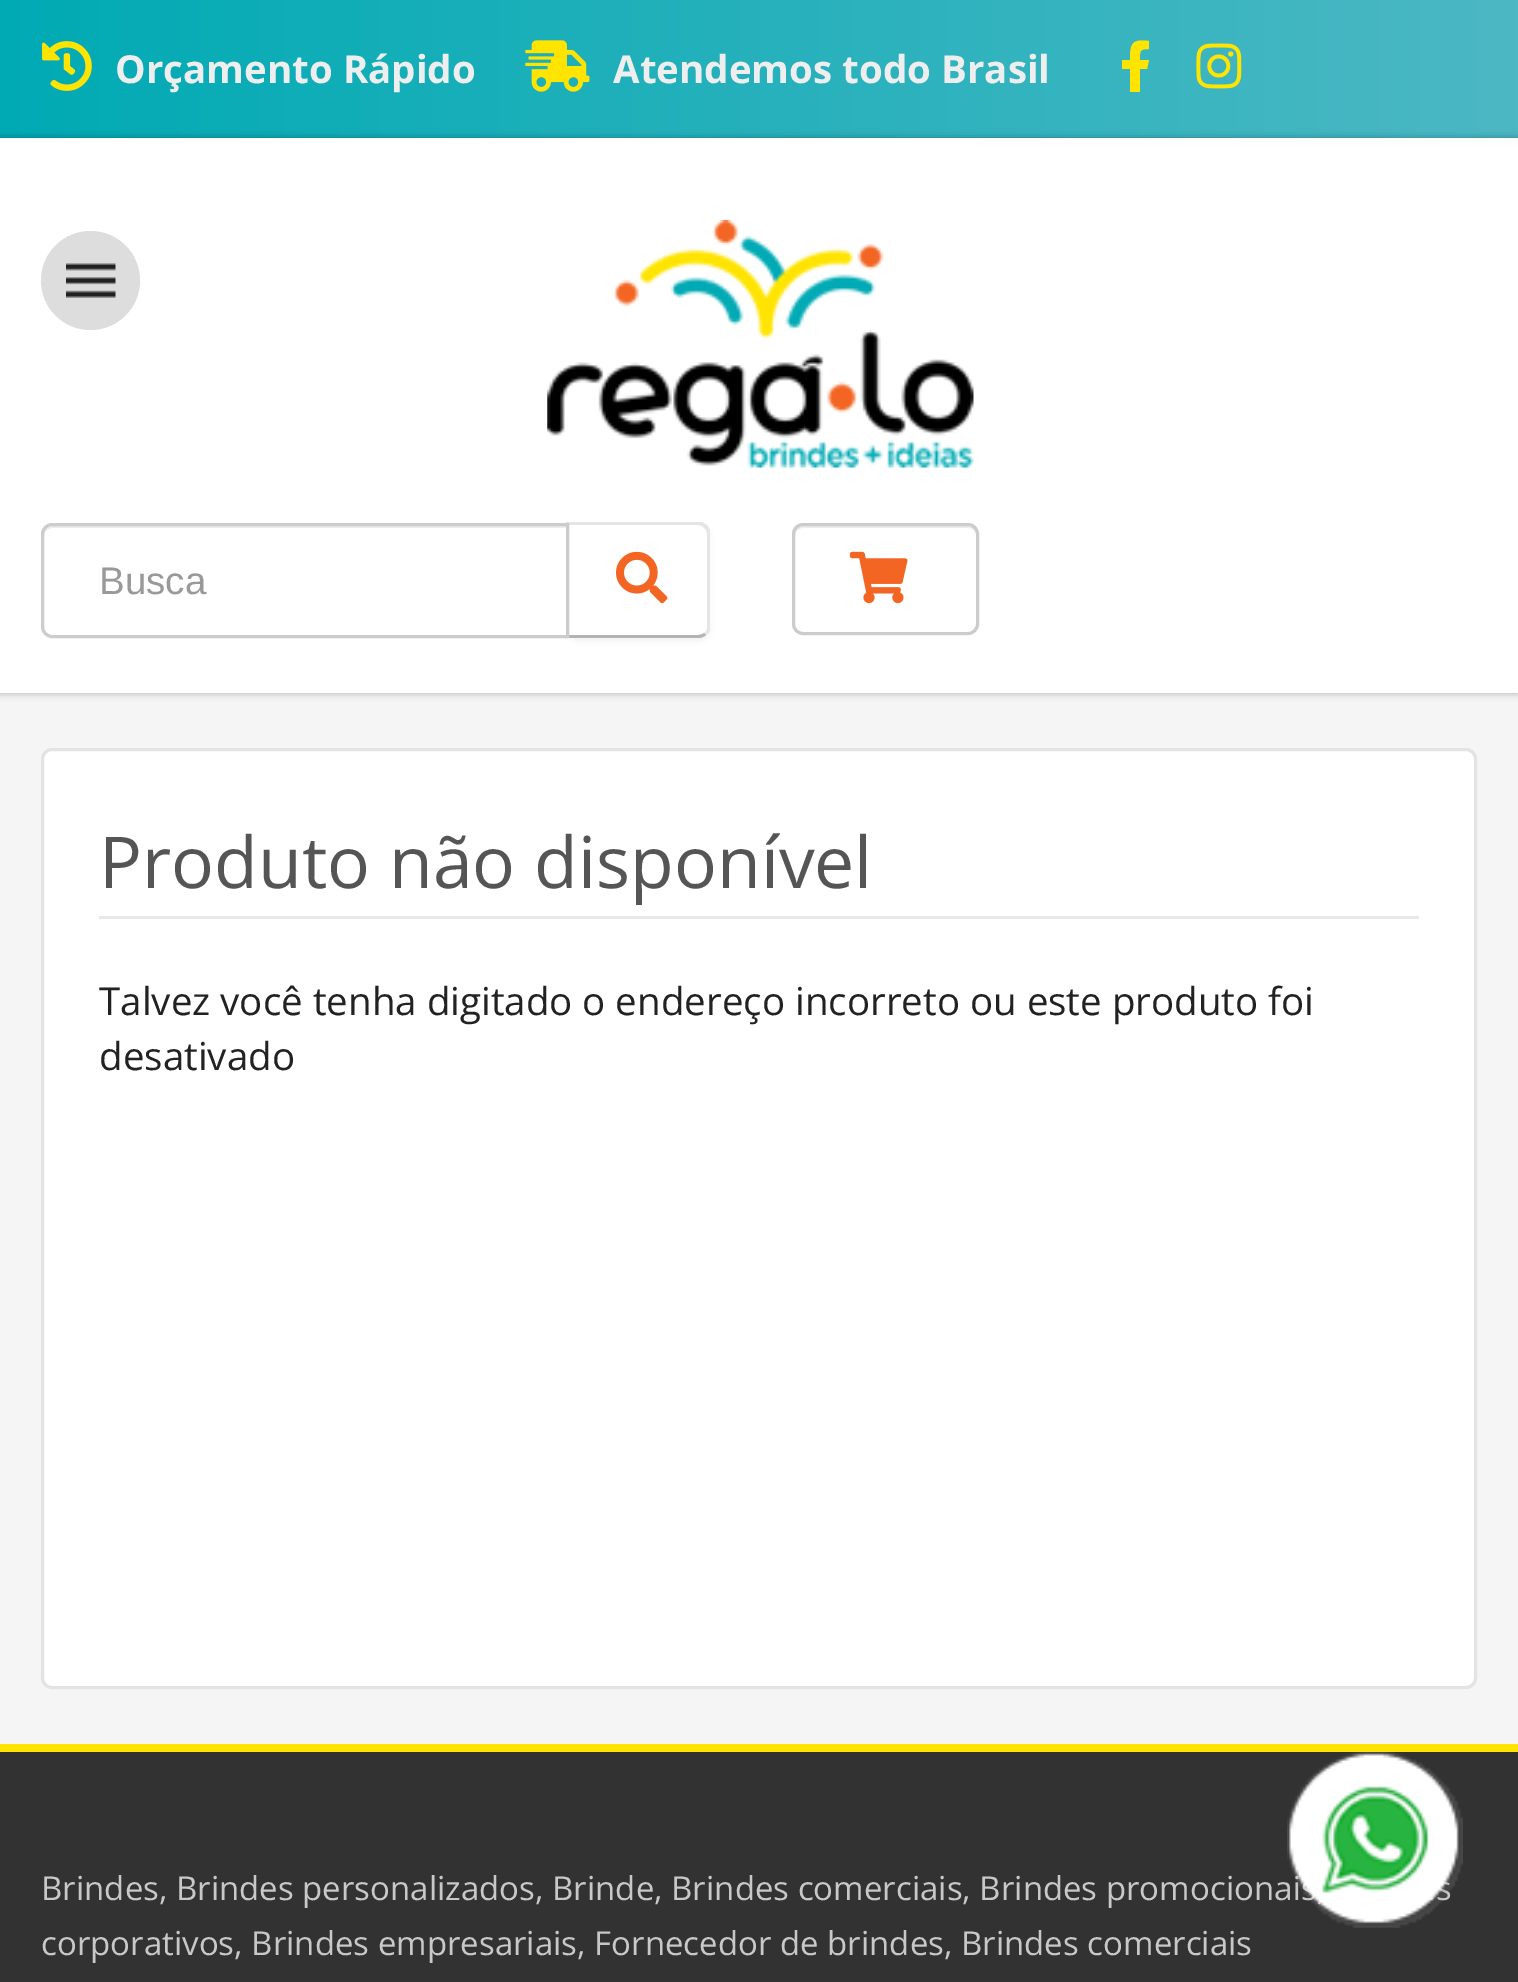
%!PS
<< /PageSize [1518 1982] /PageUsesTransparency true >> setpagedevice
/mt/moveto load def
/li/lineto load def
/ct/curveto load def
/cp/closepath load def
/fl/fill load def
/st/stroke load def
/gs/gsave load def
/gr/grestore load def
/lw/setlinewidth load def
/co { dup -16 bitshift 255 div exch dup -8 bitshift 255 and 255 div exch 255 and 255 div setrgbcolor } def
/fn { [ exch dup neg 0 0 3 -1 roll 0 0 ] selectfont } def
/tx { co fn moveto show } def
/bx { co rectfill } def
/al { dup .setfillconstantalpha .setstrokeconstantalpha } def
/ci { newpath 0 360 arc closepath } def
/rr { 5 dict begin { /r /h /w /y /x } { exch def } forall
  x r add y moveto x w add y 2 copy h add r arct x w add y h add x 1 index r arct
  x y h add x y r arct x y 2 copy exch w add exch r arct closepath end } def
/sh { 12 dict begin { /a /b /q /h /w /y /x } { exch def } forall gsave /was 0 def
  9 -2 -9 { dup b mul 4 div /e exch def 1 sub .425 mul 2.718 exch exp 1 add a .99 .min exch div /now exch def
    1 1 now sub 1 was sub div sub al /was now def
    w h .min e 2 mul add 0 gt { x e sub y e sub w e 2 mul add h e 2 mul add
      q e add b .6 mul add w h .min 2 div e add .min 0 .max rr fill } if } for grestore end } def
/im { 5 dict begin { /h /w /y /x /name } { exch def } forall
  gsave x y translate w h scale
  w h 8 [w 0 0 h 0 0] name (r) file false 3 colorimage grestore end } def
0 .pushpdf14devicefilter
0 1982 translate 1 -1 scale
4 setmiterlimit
0 0 1518 1982 16#F5F5F5 bx
gs 0 0 mt 1518 0 li 1518 138 li 0 138 li cp clip newpath
<< /ShadingType 2 /ColorSpace /DeviceRGB /Coords [0 69 1518 69] /Extend [true true] /Function << /FunctionType 2 /Domain [0 1] /C0 [0 .667 .706] /C1 [.298 .722 .769] /N 1 >> >> shfill gr
(media/1.raw) 42 41 50 50 im
(media/2.raw) 525 40 65 52 im
16#FFE401 co
1147 69 mt 1140 69 li 1140 92 li 1130 92 li 1130 69 li 1122 69 li 1122 60 li 1130 60 li 1130 43 1132 39 1149 41 ct 1149 49 li 1139 49 1140 51 1140 60 ct 1149 60 li cp fl
(media/3.raw) 1196 43 46 46 im
16#000000 co
0 138 1518 555 0 4 .3 sh
0 138 1518 555 16#FFFFFF bx
(media/4.raw) 547 220 427 248 im
16#DDDDDD co
90.5 280.5 49.5 ci fl
(media/5.raw) 66 263 50 35 im
16#000000 co
567 525 143 116 11 3 .05 sh
16#FFFFFF co
567 523 mt 699 523 li 705 523 710 528 710 534 ct 710 627 li 710 633 705 638 699 638 ct 567 638 li cp fl
16#E5E5E5 co
569 525 mt 566 522 li 702 522 li 704 523 705 524 707 525 ct 704 528 li 703 526 700 525 698 525 ct cp fl
0.1 al
16#000000 co
710 630 mt 709 632 708 634 706 635 ct 704 633 li 706 632 707 630 707 627 ct 707 534 li 707 532 706 529 704 528 ct 707 525 li 708 527 709 528 710 530 ct cp fl
1 al
16#B3B3B3 co
566 638 mt 698 638 li 701 638 704 637 706 635 ct 704 633 li 703 634 700 635 698 635 ct 570 635 li cp fl
0.1 al
16#000000 co
569 525 mt 566 522 li 566 638 li 570 635 li 569 635 li cp fl
1 al
16#FFFFFF co
52 523 mt 569 523 li 569 638 li 52 638 li 46 638 41 633 41 627 ct 41 534 li 41 528 46 523 52 523 ct cp fl
16#ECECEC co
52 528 mt 566 528 li 566 635 li 567 635 li 567 525 li 52 525 li 46 525 44 531 44 536 ct 44 532 48 528 52 528 ct cp fl
16#CCCCCC co
3 lw
52 524.5 mt 567.5 524.5 li 567.5 636.5 li 52 636.5 li 47 636.5 42.5 632 42.5 627 ct 42.5 534 li 42.5 529 47 524.5 52 524.5 ct cp st
(media/6.raw) 616 551 52 53 im
16#ECECEC co
803 528 mt 968 528 li 973 528 976 532 976 536 ct 976 533 li 976 529 972 525 968 525 ct 803 525 li 799 525 795 529 795 533 ct 795 536 li 795 532 798 528 803 528 ct cp fl
16#CCCCCC co
793.5 524.5 184 109 9.5 rr st
(media/7.raw) 849 551 59 53 im
16#FFFFFF co
42.5 749.5 1433 938 9.5 rr gs fl gr
16#E3E3E3 co
st
99 916 1320 3 16#E8E8E8 bx
0 1752 1518 230 16#323232 bx
0 1744 1518 8 16#FFE401 bx
(Orçamento Rápido) 115 83 /OpenSans-Bold 38.5 16#EEEEEE tx
(Atendemos todo Brasil) 613 83 /OpenSans-Bold 38.5 16#EEEEEE tx
(Busca) 99 594 /LiberationSans-Regular 38.5 16#999999 tx
(Produto não disponível) 99 888 /OpenSans-Regular 71.5 16#555555 tx
(Talvez você tenha digitado o endereço incorreto ou este produto foi) 99 1015 /OpenSans-Regular 38.5 16#222222 tx
(desativado) 99 1070 /OpenSans-Regular 38.5 16#222222 tx
(Brindes, Brindes personalizados, Brinde, Brindes comerciais, Brindes promocionai) 41 1900 /OpenSans-Regular 33 16#C8C8C8 tx
(corporativos, Brindes empresariais, Fornecedor de brindes, Brindes comerciais) 41 1955 /OpenSans-Regular 33 16#C8C8C8 tx
(media/8.raw) 1287 1751 176 177 im
.poppdf14devicefilter showpage
